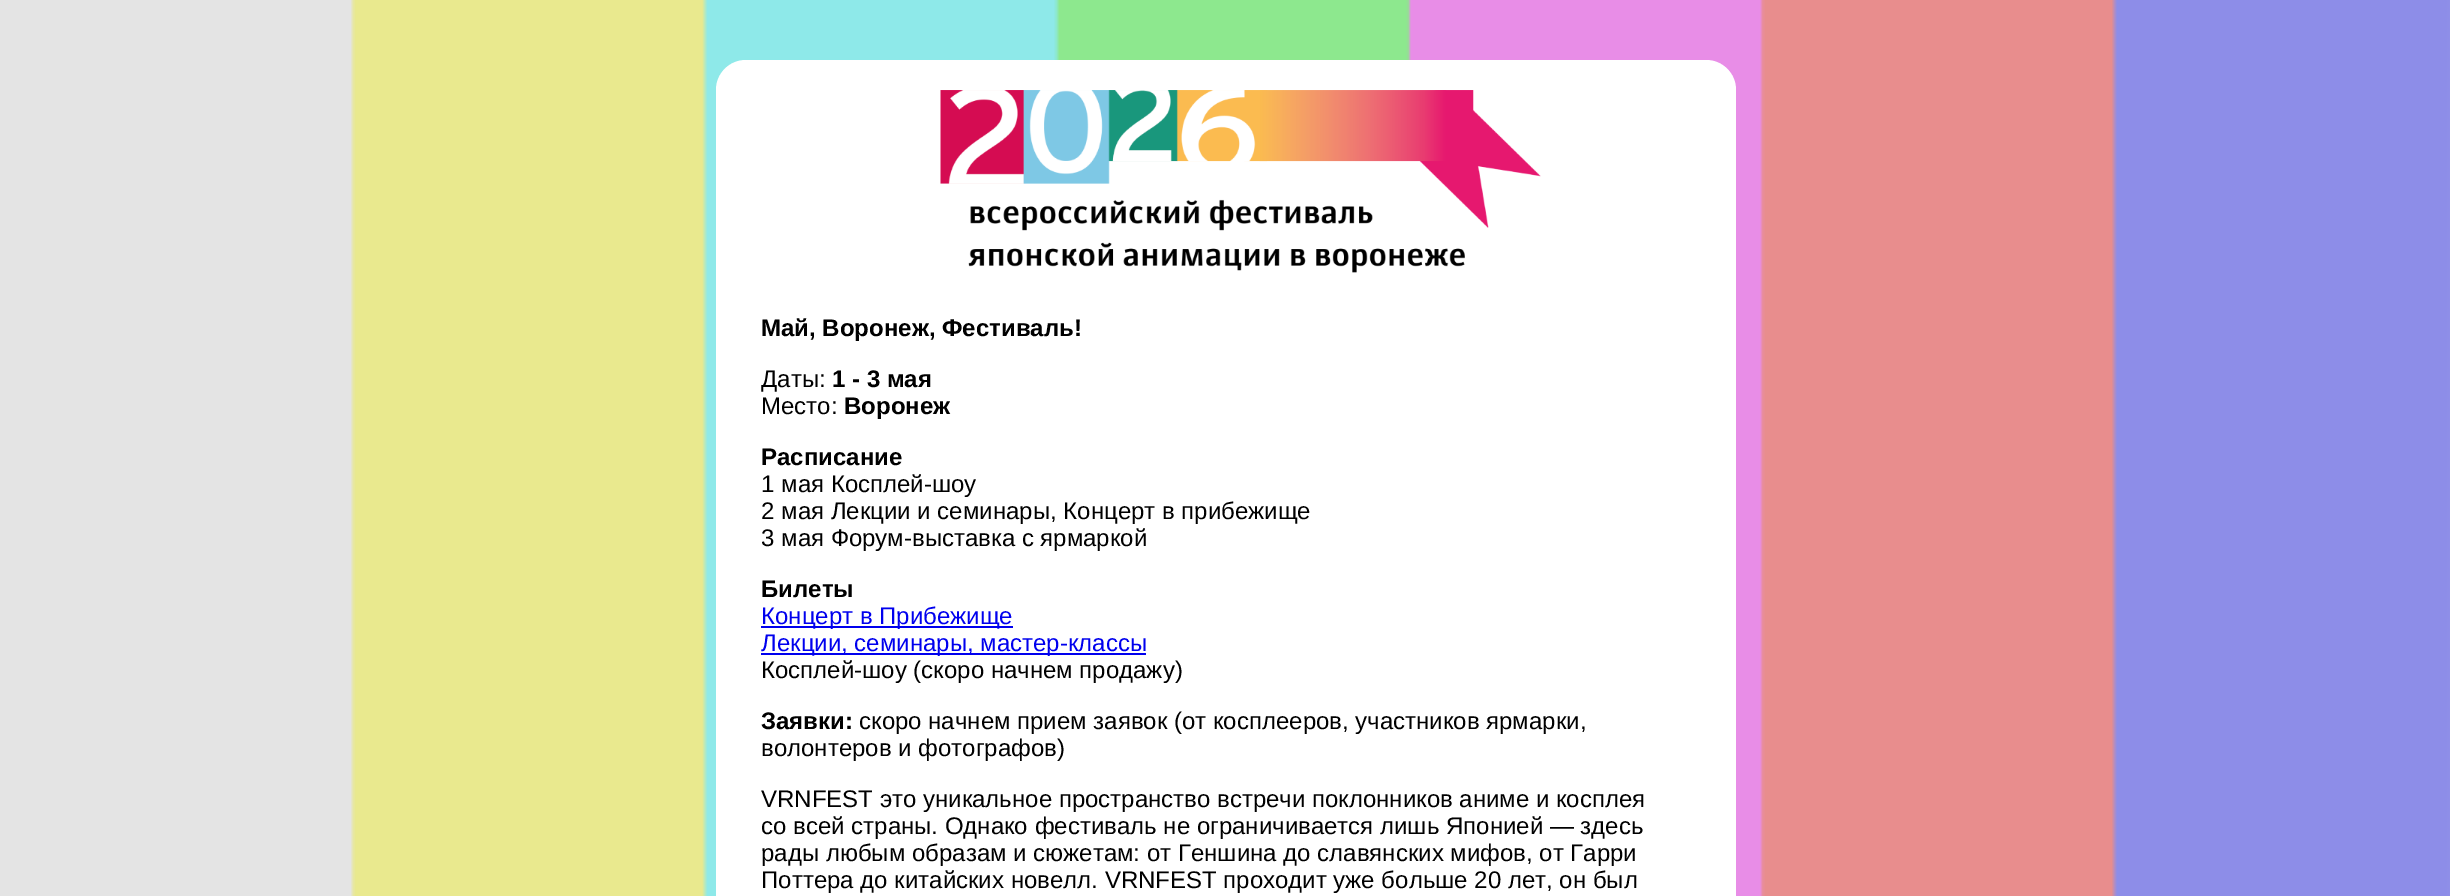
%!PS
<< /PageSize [2450 896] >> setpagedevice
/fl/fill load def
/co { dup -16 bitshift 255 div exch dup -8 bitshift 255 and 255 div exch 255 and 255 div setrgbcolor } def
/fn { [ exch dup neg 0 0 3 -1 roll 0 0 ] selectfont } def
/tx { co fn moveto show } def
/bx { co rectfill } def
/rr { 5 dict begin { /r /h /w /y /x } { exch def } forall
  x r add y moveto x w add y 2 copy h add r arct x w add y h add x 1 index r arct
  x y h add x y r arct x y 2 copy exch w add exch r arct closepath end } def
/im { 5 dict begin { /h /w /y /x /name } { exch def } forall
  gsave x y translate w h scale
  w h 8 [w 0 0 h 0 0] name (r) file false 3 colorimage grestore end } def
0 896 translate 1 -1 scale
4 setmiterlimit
0 0 2450 896 16#FFFFFF bx
(media/1.raw) 0 0 2450 896 im
716 60 1020 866 30 rr fl
(media/2.raw) 940 90 601 183 im
761 626 252 2 16#0000EE bx
761 653 385 2 16#0000EE bx
(Май, Воронеж, Фестиваль!) 761 336 /LiberationSans-Bold 24 16#000000 tx
(Даты:) 761 387 /LiberationSans-Regular 24 16#000000 tx
(1 - 3 мая) 832 387 /LiberationSans-Bold 24 16#000000 tx
(Место:) 761 414 /LiberationSans-Regular 24 16#000000 tx
(Воронеж) 844 414 /LiberationSans-Bold 24 16#000000 tx
(Расписание) 761 465 /LiberationSans-Bold 24 16#000000 tx
(1 мая Косплей-шоу) 761 492 /LiberationSans-Regular 24 16#000000 tx
(2 мая Лекции и семинары, Концерт в прибежище) 761 519 /LiberationSans-Regular 24 16#000000 tx
(3 мая Форум-выставка с ярмаркой) 761 546 /LiberationSans-Regular 24 16#000000 tx
(Билеты) 761 597 /LiberationSans-Bold 24 16#000000 tx
(Концерт в Прибежище) 761 624 /LiberationSans-Regular 24 16#0000EE tx
(Лекции, семинары, мастер-классы) 761 651 /LiberationSans-Regular 24 16#0000EE tx
(Косплей-шоу \(скоро начнем продажу\)) 761 678 /LiberationSans-Regular 24 16#000000 tx
(Заявки:) 761 729 /LiberationSans-Bold 24 16#000000 tx
(скоро начнем прием заявок \(от косплееров, участников ярмарки,) 859 729 /LiberationSans-Regular 24 16#000000 tx
(волонтеров и фотографов\)) 761 756 /LiberationSans-Regular 24 16#000000 tx
(VRNFEST это уникальное пространство встречи поклонников аниме и косплея) 761 807 /LiberationSans-Regular 24 16#000000 tx
(со всей страны. Однако фестиваль не ограничивается лишь Японией — здесь) 761 834 /LiberationSans-Regular 24 16#000000 tx
(рады любым образам и сюжетам: от Геншина до славянских мифов, от Гарри) 761 861 /LiberationSans-Regular 24 16#000000 tx
(Поттера до китайских новелл. VRNFEST проходит уже больше 20 лет, он был) 761 888 /LiberationSans-Regular 24 16#000000 tx
showpage
